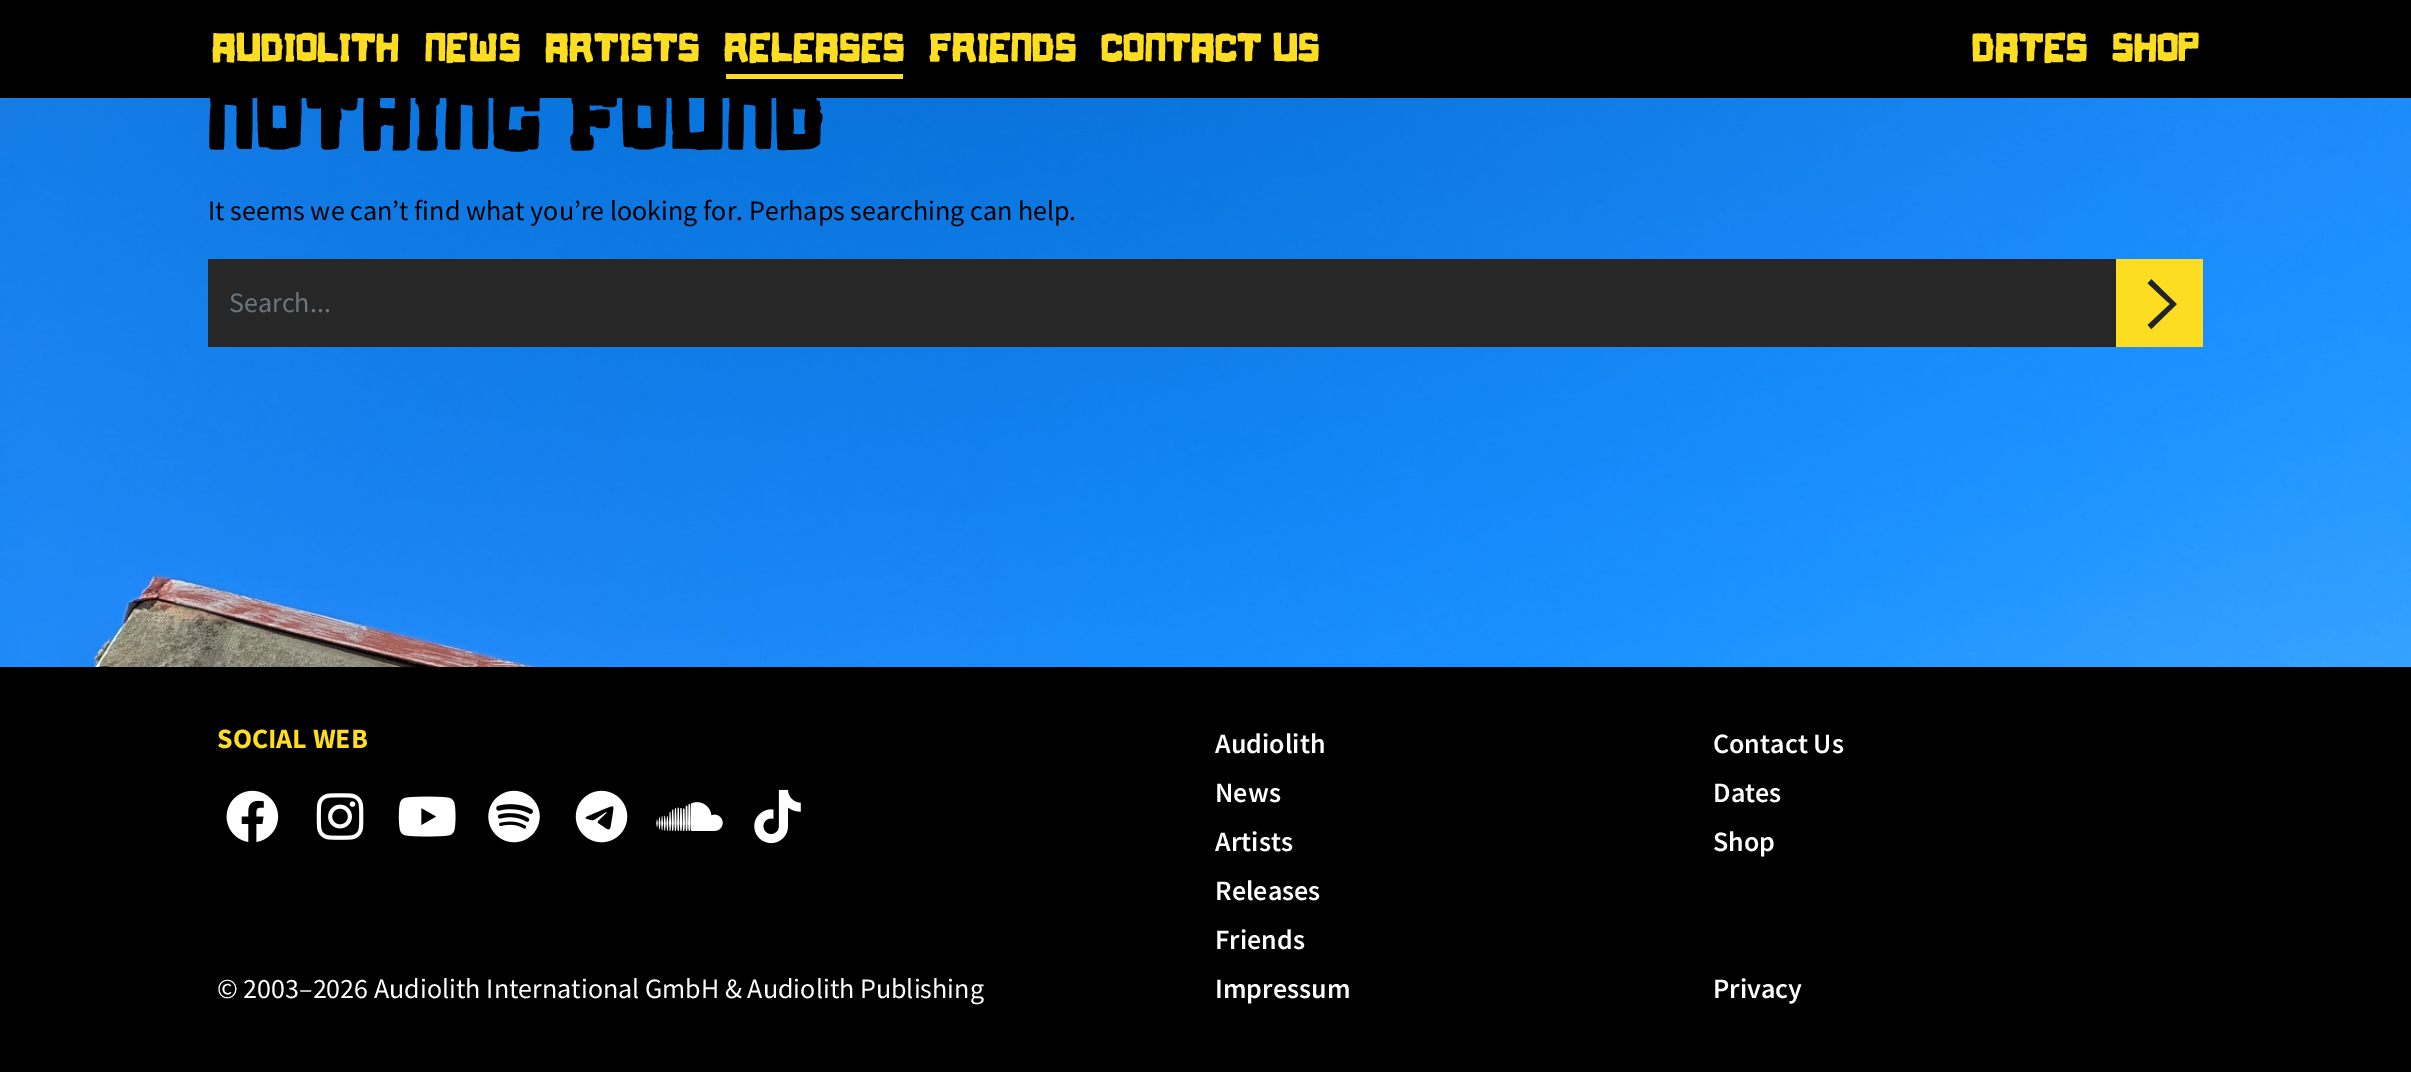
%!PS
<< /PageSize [2411 1072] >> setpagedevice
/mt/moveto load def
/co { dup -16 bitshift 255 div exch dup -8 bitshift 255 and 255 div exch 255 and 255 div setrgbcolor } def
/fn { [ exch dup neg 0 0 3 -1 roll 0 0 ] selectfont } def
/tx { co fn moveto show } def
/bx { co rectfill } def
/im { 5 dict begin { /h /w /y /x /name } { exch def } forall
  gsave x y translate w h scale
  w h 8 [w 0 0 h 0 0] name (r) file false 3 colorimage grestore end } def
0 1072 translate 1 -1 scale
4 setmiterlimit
0 0 2411 1072 16#FFFFFF bx
(media/1.raw) 0 98 2411 569 im
0 0 2411 98 16#000000 bx
726 74 177 5 16#FCDD22 bx
208 259 1908 88 16#272727 bx
2116 259 87 88 16#FCDD22 bx
(media/2.raw) 2147 279 30 51 im
0 667 2411 405 16#000000 bx
(media/3.raw) 226 790 53 52 im
(media/4.raw) 316 793 48 47 im
(media/5.raw) 398 796 58 41 im
(media/6.raw) 488 790 52 53 im
(media/7.raw) 575 790 53 53 im
(media/8.raw) 656 802 67 29 im
(media/9.raw) 754 789 47 55 im
/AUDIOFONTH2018-Regular 41.75 fn
16#FCDD22 co
212 61 mt .25 0 (Audiolith) ashow
425 61 mt .25 0 (News) ashow
545 61 mt .25 0 (Artists) ashow
724 61 mt .25 0 (Releases) ashow
929 61 mt .25 0 (Friends) ashow
1101 61 mt .25 0 (Contact Us) ashow
1972 61 mt .25 0 (Dates) ashow
2112 61 mt .25 0 (Shop) ashow
/AUDIOFONTH2018-Bold 86.75 fn
16#000000 co
208 149 mt 4.9 0 (NOTHING FOUND) ashow
(It seems we can’t find what you’re looking for. Perhaps searching can help.) 208 220 /SourceSansPro-Regular 28 16#000000 tx
(Search...) 229 312 /SourceSansPro-Regular 28 16#6C757D tx
(SOCIAL WEB) 217 748 /SourceSansPro-Bold 28 16#FCDD22 tx
(Audiolith) 1215 753 /SourceSansPro-SemiBold 28 16#FFFFFF tx
(News) 1215 802 /SourceSansPro-SemiBold 28 16#FFFFFF tx
(Artists) 1215 851 /SourceSansPro-SemiBold 28 16#FFFFFF tx
(Releases) 1215 900 /SourceSansPro-SemiBold 28 16#FFFFFF tx
(Friends) 1215 949 /SourceSansPro-SemiBold 28 16#FFFFFF tx
(Contact Us) 1713 753 /SourceSansPro-SemiBold 28 16#FFFFFF tx
(Dates) 1713 802 /SourceSansPro-SemiBold 28 16#FFFFFF tx
(Shop) 1713 851 /SourceSansPro-SemiBold 28 16#FFFFFF tx
(© 2003–2026 Audiolith International GmbH & Audiolith Publishing) 217 998 /SourceSansPro-Regular 28 16#FFFFFF tx
(Impressum) 1215 998 /SourceSansPro-SemiBold 28 16#FFFFFF tx
(Privacy) 1713 998 /SourceSansPro-SemiBold 28 16#FFFFFF tx
showpage
